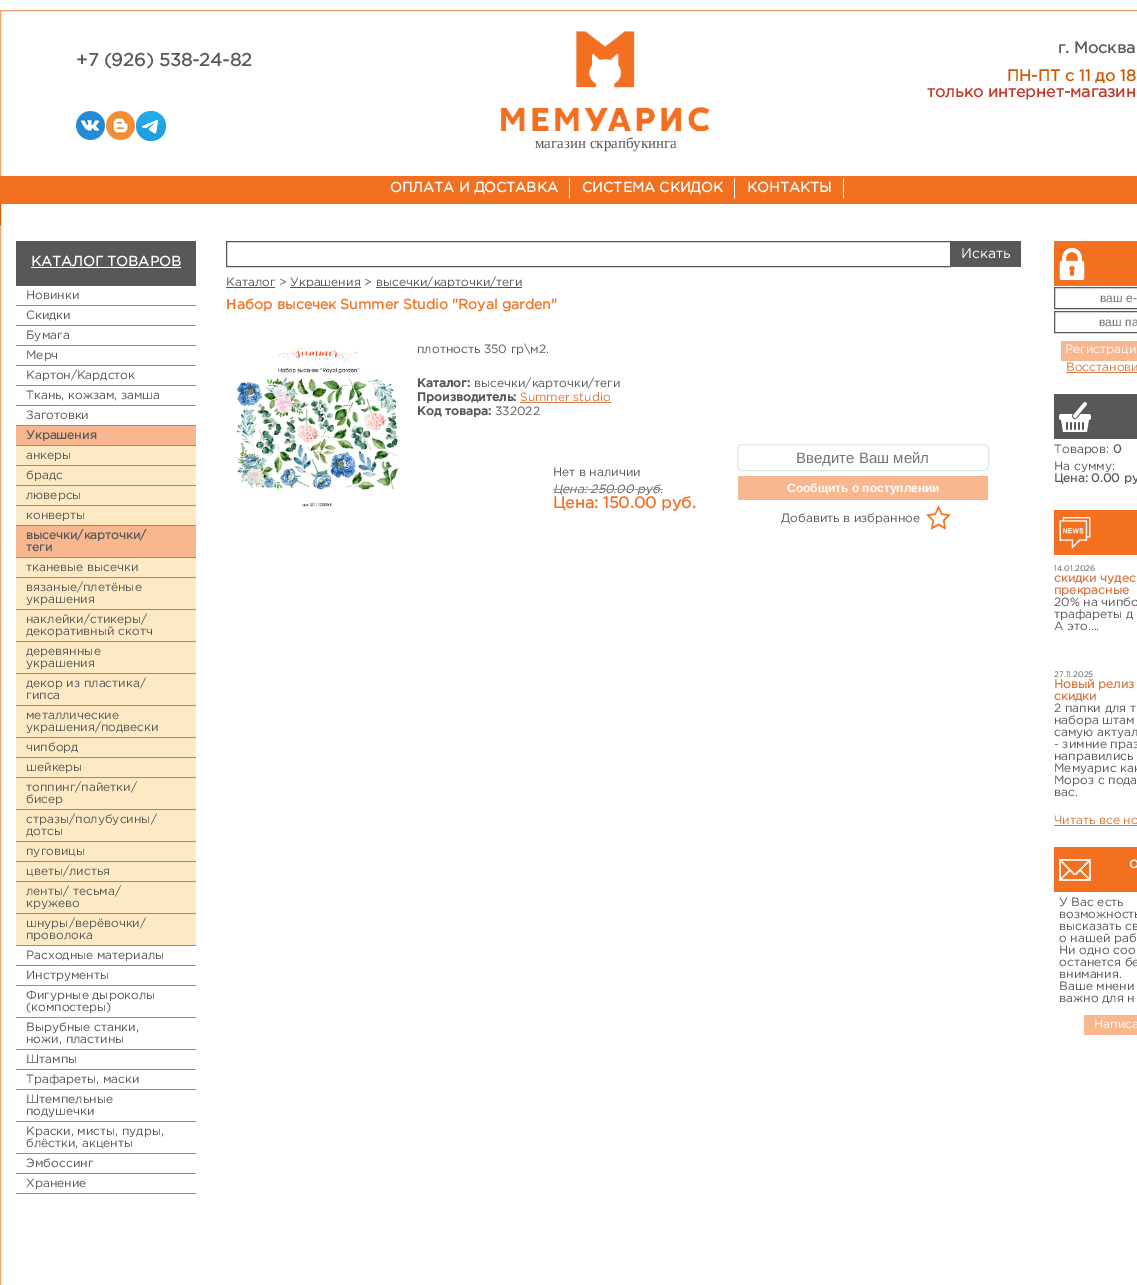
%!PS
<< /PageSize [1137 1285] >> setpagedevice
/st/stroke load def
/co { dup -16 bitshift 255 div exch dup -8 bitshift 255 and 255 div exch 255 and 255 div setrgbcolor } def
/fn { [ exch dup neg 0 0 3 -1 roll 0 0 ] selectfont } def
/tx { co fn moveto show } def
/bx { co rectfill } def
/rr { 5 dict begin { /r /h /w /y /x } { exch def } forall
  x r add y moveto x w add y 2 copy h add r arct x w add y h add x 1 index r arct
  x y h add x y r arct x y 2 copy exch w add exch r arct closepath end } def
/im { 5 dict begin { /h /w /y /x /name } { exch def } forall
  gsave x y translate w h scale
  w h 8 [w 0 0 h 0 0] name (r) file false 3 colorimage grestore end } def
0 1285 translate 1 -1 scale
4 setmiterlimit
0 0 1137 1285 16#FFFFFF bx
16#F7A26F co
.5 10.5 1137 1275 rectstroke
(media/1.raw) 76 111 29 29 im
(media/2.raw) 106 111 29 29 im
(media/3.raw) 136 111 30 30 im
(media/4.raw) 500 31 210 100 im
1 176 1136 28 16#F37021 bx
(media/5.raw) 0 176 1 51 im
(media/6.raw) 569 178 1 21 im
(media/6.raw) 734 178 1 21 im
(media/6.raw) 843 178 1 21 im
16 241 180 45 16#585858 bx
31 267 150 1 16#FFFFFF bx
16 305 180 1 16#F37021 bx
16 325 180 1 16#F37021 bx
16 345 180 1 16#F37021 bx
16 365 180 1 16#F37021 bx
16 385 180 1 16#F37021 bx
16 405 180 1 16#F37021 bx
16 425 180 1 16#F37021 bx
16 446 180 499 16#FDEAC4 bx
16 426 180 19 16#F9B790 bx
16 445 180 1 16#F37021 bx
16 465 180 1 16#F37021 bx
16 485 180 1 16#F37021 bx
16 505 180 1 16#F37021 bx
16 525 180 1 16#F37021 bx
16 526 180 31 16#F9B790 bx
16 557 180 1 16#F37021 bx
16 577 180 1 16#F37021 bx
16 609 180 1 16#F37021 bx
16 641 180 1 16#F37021 bx
16 673 180 1 16#F37021 bx
16 705 180 1 16#F37021 bx
16 737 180 1 16#F37021 bx
16 757 180 1 16#F37021 bx
16 777 180 1 16#F37021 bx
16 809 180 1 16#F37021 bx
16 841 180 1 16#F37021 bx
16 861 180 1 16#F37021 bx
16 881 180 1 16#F37021 bx
16 913 180 1 16#F37021 bx
16 945 180 1 16#F37021 bx
16 965 180 1 16#F37021 bx
16 985 180 1 16#F37021 bx
16 1017 180 1 16#F37021 bx
16 1049 180 1 16#F37021 bx
16 1069 180 1 16#F37021 bx
16 1089 180 1 16#F37021 bx
16 1121 180 1 16#F37021 bx
16 1153 180 1 16#F37021 bx
16 1173 180 1 16#F37021 bx
16 1193 180 1 16#F37021 bx
16#585858 co
226.5 241.5 724 25 rectstroke
951 241 70 26 16#585858 bx
226 287 49 1 16#585858 bx
290 287 71 1 16#585858 bx
376 287 146 1 16#585858 bx
(media/7.raw) 236 345 163 162 im
520 402 91 1 16#D87842 bx
16#D9E9E6 co
737.5 444.5 251 26 4.5 rr st
738 476 250 24 16#F9B790 bx
(media/8.raw) 926 505 25 25 im
1054 241 83 45 16#F37021 bx
(media/9.raw) 1059 248 26 32 im
16#585858 co
1054.5 287.5 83 21 rectstroke
1054.5 311.5 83 21 rectstroke
1061 341 76 20 16#F9B790 bx
1066 372 71 1 16#D87842 bx
1054 394 83 45 16#585858 bx
(media/10.raw) 1059 402 32 30 im
1054 510 83 45 16#F37021 bx
(media/11.raw) 1059 517 32 32 im
1054 825 83 1 16#D87842 bx
1054 847 83 45 16#F37021 bx
(media/12.raw) 1059 859 32 22 im
1084 1015 53 20 16#F9B790 bx
(+7 \(926\) 538-24-82) 76 66 /Gotham-Bold 18 16#585858 tx
(г. Москва) 1058 53 /Gotham-Bold 16 16#585858 tx
(ПН-ПТ с 11 до 18) 1007 81 /Gotham-Bold 16 16#D35400 tx
(только интернет-магазин) 927 97 /Gotham-Bold 16 16#C0392B tx
(магазин скрапбукинга) 535 148 /LiberationSerif-Regular 15 16#585858 tx
(ОПЛАТА И ДОСТАВКА) 390 192 /Gotham-Bold 14 16#FFFFFF tx
(СИСТЕМА СКИДОК) 582 192 /Gotham-Bold 14 16#FFFFFF tx
(КОНТАКТЫ) 747 192 /Gotham-Bold 14 16#FFFFFF tx
(КАТАЛОГ ТОВАРОВ) 31 266 /Gotham-Bold 14 16#FFFFFF tx
(Новинки) 26 299 /Gotham-Regular 12 16#585858 tx
(Скидки) 26 319 /Gotham-Regular 12 16#585858 tx
(Бумага) 26 339 /Gotham-Regular 12 16#585858 tx
(Мерч) 26 359 /Gotham-Regular 12 16#585858 tx
(Картон/Кардсток) 26 379 /Gotham-Regular 12 16#585858 tx
(Ткань, кожзам, замша) 26 399 /Gotham-Regular 12 16#585858 tx
(Заготовки) 26 419 /Gotham-Regular 12 16#585858 tx
(Украшения) 26 439 /Gotham-Bold 12 16#585858 tx
(анкеры) 26 459 /Gotham-Regular 12 16#585858 tx
(брадс) 26 479 /Gotham-Regular 12 16#585858 tx
(люверсы) 26 499 /Gotham-Regular 12 16#585858 tx
(конверты) 26 519 /Gotham-Regular 12 16#585858 tx
(высечки/карточки/) 26 539 /Gotham-Bold 12 16#585858 tx
(теги) 26 551 /Gotham-Bold 12 16#585858 tx
(тканевые высечки) 26 571 /Gotham-Regular 12 16#585858 tx
(вязаные/плетёные) 26 591 /Gotham-Regular 12 16#585858 tx
(украшения) 26 603 /Gotham-Regular 12 16#585858 tx
(наклейки/стикеры/) 26 623 /Gotham-Regular 12 16#585858 tx
(декоративный скотч) 26 635 /Gotham-Regular 12 16#585858 tx
(деревянные) 26 655 /Gotham-Regular 12 16#585858 tx
(украшения) 26 667 /Gotham-Regular 12 16#585858 tx
(декор из пластика/) 26 687 /Gotham-Regular 12 16#585858 tx
(гипса) 26 699 /Gotham-Regular 12 16#585858 tx
(металлические) 26 719 /Gotham-Regular 12 16#585858 tx
(украшения/подвески) 26 731 /Gotham-Regular 12 16#585858 tx
(чипборд) 26 751 /Gotham-Regular 12 16#585858 tx
(шейкеры) 26 771 /Gotham-Regular 12 16#585858 tx
(топпинг/пайетки/) 26 791 /Gotham-Regular 12 16#585858 tx
(бисер) 26 803 /Gotham-Regular 12 16#585858 tx
(стразы/полубусины/) 26 823 /Gotham-Regular 12 16#585858 tx
(дотсы) 26 835 /Gotham-Regular 12 16#585858 tx
(пуговицы) 26 855 /Gotham-Regular 12 16#585858 tx
(цветы/листья) 26 875 /Gotham-Regular 12 16#585858 tx
(ленты/ тесьма/) 26 895 /Gotham-Regular 12 16#585858 tx
(кружево) 26 907 /Gotham-Regular 12 16#585858 tx
(шнуры/верёвочки/) 26 927 /Gotham-Regular 12 16#585858 tx
(проволока) 26 939 /Gotham-Regular 12 16#585858 tx
(Расходные материалы) 26 959 /Gotham-Regular 12 16#585858 tx
(Инструменты) 26 979 /Gotham-Regular 12 16#585858 tx
(Фигурные дыроколы) 26 999 /Gotham-Regular 12 16#585858 tx
(\(компостеры\)) 26 1011 /Gotham-Regular 12 16#585858 tx
(Вырубные станки,) 26 1031 /Gotham-Regular 12 16#585858 tx
(ножи, пластины) 26 1043 /Gotham-Regular 12 16#585858 tx
(Штампы) 26 1063 /Gotham-Regular 12 16#585858 tx
(Трафареты, маски) 26 1083 /Gotham-Regular 12 16#585858 tx
(Штемпельные) 26 1103 /Gotham-Regular 12 16#585858 tx
(подушечки) 26 1115 /Gotham-Regular 12 16#585858 tx
(Краски, мисты, пудры,) 26 1135 /Gotham-Regular 12 16#585858 tx
(блёстки, акценты) 26 1147 /Gotham-Regular 12 16#585858 tx
(Эмбоссинг) 26 1167 /Gotham-Regular 12 16#585858 tx
(Хранение) 26 1187 /Gotham-Regular 12 16#585858 tx
(Искать) 961 258 /Gotham-Regular 14 16#FFFFFF tx
(Каталог >) 226 286 /Gotham-Regular 12 16#585858 tx
(Украшения >) 290 286 /Gotham-Regular 12 16#585858 tx
(высечки/карточки/теги) 376 286 /Gotham-Regular 12 16#585858 tx
(Н) 226 309 /NotoSans-SemiBold 14 16#F37021 tx
(абор высечек Summer Studio "Royal garden") 237 309 /Gotham-Bold 14 16#F37021 tx
(плотность 350 гр\\м2.) 417 353 /Gotham-Regular 12 16#585858 tx
(Каталог:) 417 387 /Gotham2-Bold 12 16#585858 tx
(высечки/карточки/теги) 474 387 /Gotham-Regular 12 16#585858 tx
(Производитель:) 417 401 /Gotham2-Bold 12 16#585858 tx
(Summer studio) 520 401 /Gotham-Regular 12 16#D87842 tx
(Код товара:) 417 415 /Gotham2-Bold 12 16#585858 tx
(332022) 495 415 /Gotham-Regular 12 16#585858 tx
(Нет в наличии) 553 476 /Gotham-Regular 12 16#585858 tx
(Цена: 250.00 руб.) 553 493 /Gotham-Italic 12 16#585858 tx
553 489 110 1 16#9E9E9E bx
(Цена: 150.00 руб.) 553 508 /Gotham-Bold 16 16#F37021 tx
(Введите Ваш мейл) 796 463 /LiberationSans-Regular 15 16#757575 tx
(Сообщить о поступлении) 787 492 /LiberationSans-Bold 12 16#FFFFFF tx
(Добавить в избранное) 781 522 /Gotham-Regular 12 16#585858 tx
(ваш е-) 1100 302 /LiberationSans-Regular 12 16#757575 tx
(ваш па) 1099 326 /LiberationSans-Regular 12 16#757575 tx
(Регистраци) 1065 353 /Gotham-Regular 12 16#FFFFFF tx
(Восстанови) 1066 371 /Gotham-Regular 12 16#D87842 tx
(Товаров:) 1054 453 /Gotham-Regular 12 16#585858 tx
(0) 1113 453 /Gotham-Bold 12 16#585858 tx
(На сумму:) 1054 470 /Gotham-Regular 12 16#585858 tx
(Цена: 0.00 ру) 1054 482 /Gotham-Bold 12 16#585858 tx
(14.01.2026) 1054 571 /Gotham-Regular 8 16#585858 tx
(скидки чудес) 1054 582 /Gotham-Bold 12 16#D87842 tx
(прекрасные) 1054 594 /Gotham-Bold 12 16#D87842 tx
(20% на чипбо) 1054 606 /Gotham-Regular 12 16#585858 tx
(трафареты д) 1054 618 /Gotham-Regular 12 16#585858 tx
(А это....) 1054 630 /Gotham-Regular 12 16#585858 tx
(27.11.2025) 1054 677 /Gotham-Regular 8 16#585858 tx
(Новый релиз) 1054 688 /Gotham-Bold 12 16#D87842 tx
(скидки) 1054 700 /Gotham-Bold 12 16#D87842 tx
(2 папки для т) 1054 712 /Gotham-Regular 12 16#585858 tx
(набора штам) 1054 724 /Gotham-Regular 12 16#585858 tx
(самую актуал) 1054 736 /Gotham-Regular 12 16#585858 tx
(- зимние праз) 1054 748 /Gotham-Regular 12 16#585858 tx
(направились) 1054 760 /Gotham-Regular 12 16#585858 tx
(Мемуарис как) 1054 772 /Gotham-Regular 12 16#585858 tx
(Мороз с пода) 1054 784 /Gotham-Regular 12 16#585858 tx
(вас.) 1054 796 /Gotham-Regular 12 16#585858 tx
(Читать все но) 1054 824 /Gotham-Regular 12 16#D87842 tx
(О) 1129 868 /Gotham-Medium 12 16#FFFFFF tx
(У Вас есть) 1059 906 /Gotham-Regular 12 16#585858 tx
(возможность) 1059 918 /Gotham-Regular 12 16#585858 tx
(высказать св) 1059 930 /Gotham-Regular 12 16#585858 tx
(о нашей раб) 1059 942 /Gotham-Regular 12 16#585858 tx
(Ни одно соо) 1059 954 /Gotham-Regular 12 16#585858 tx
(останется бе) 1059 966 /Gotham-Regular 12 16#585858 tx
(внимания.) 1059 978 /Gotham-Regular 12 16#585858 tx
(Ваше мнени) 1059 990 /Gotham-Regular 12 16#585858 tx
(важно для н) 1059 1002 /Gotham-Regular 12 16#585858 tx
(Написа) 1094 1028 /Gotham-Regular 12 16#FFFFFF tx
showpage
